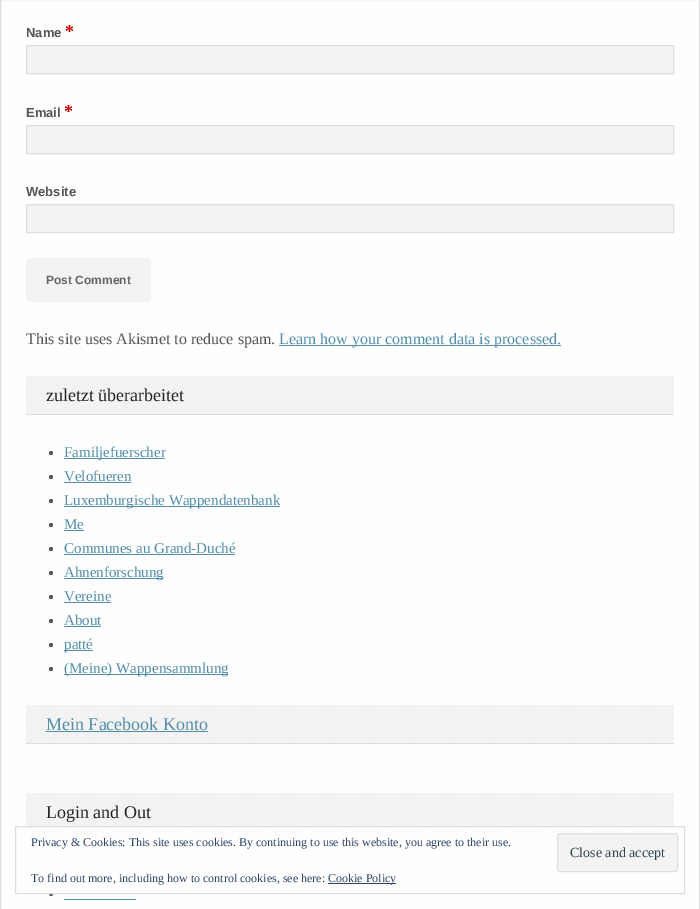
%!PS
<< /PageSize [700 909] >> setpagedevice
/mt/moveto load def
/li/lineto load def
/cp/closepath load def
/fl/fill load def
/st/stroke load def
/gs/gsave load def
/gr/grestore load def
/co { dup -16 bitshift 255 div exch dup -8 bitshift 255 and 255 div exch 255 and 255 div setrgbcolor } def
/fn { [ exch dup neg 0 0 3 -1 roll 0 0 ] selectfont } def
/tx { co fn moveto show } def
/bx { co rectfill } def
/ci { newpath 0 360 arc closepath } def
/rr { 5 dict begin { /r /h /w /y /x } { exch def } forall
  x r add y moveto x w add y 2 copy h add r arct x w add y h add x 1 index r arct
  x y h add x y r arct x y 2 copy exch w add exch r arct closepath end } def
/im { 5 dict begin { /h /w /y /x /name } { exch def } forall
  gsave x y translate w h scale
  w h 8 [w 0 0 h 0 0] name (r) file false 3 colorimage grestore end } def
0 909 translate 1 -1 scale
4 setmiterlimit
0 0 700 909 16#FEFEFE bx
16#DDDDDD co
.5 -.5 699 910 rectstroke
16#F3F3F3 co
26.5 45.5 mt 673.5 45.5 li 673.5 73.5 li 26.5 73.5 li cp gs fl gr
16#DDDDDD co
st
16#F3F3F3 co
26.5 125.5 mt 673.5 125.5 li 673.5 153.5 li 26.5 153.5 li cp gs fl gr
16#DDDDDD co
st
16#F3F3F3 co
26.5 204.5 mt 673.5 204.5 li 673.5 232.5 li 26.5 232.5 li cp gs fl gr
16#DDDDDD co
st
16#F3F3F3 co
26 258 125 44 5 rr fl
279 345 282 1 16#538EAB bx
26 376 648 38 16#F3F3F3 bx
(media/1.raw) 26 376 648 38 im
26 414 648 1 16#DDDDDD bx
16#555555 co
51 453 2 ci fl
64 458 101 1 16#538EAB bx
16#555555 co
51 477 2 ci fl
64 482 67 1 16#538EAB bx
16#555555 co
51 501 2 ci fl
64 506 216 1 16#538EAB bx
16#555555 co
51 525 2 ci fl
64 530 20 1 16#538EAB bx
16#555555 co
51 549 2 ci fl
64 554 171 1 16#538EAB bx
16#555555 co
51 573 2 ci fl
64 578 99 1 16#538EAB bx
16#555555 co
51 597 2 ci fl
64 602 47 1 16#538EAB bx
16#555555 co
51 621 2 ci fl
64 626 37 1 16#538EAB bx
16#555555 co
51 645 2 ci fl
64 650 29 1 16#538EAB bx
16#555555 co
51 669 2 ci fl
64 674 164 1 16#538EAB bx
26 705 648 38 16#F3F3F3 bx
(media/1.raw) 26 705 648 38 im
26 743 648 1 16#DDDDDD bx
46 731 162 1 16#538EAB bx
26 793 648 33 16#F3F3F3 bx
(media/2.raw) 26 793 648 33 im
16#555555 co
51 894 2 ci fl
64 899 72 1 16#538EAB bx
49 892 4 1 16#FFFFFF bx
16#DEDEDE co
15.5 826.5 669 67 rectstroke
16#F3F3F3 co
557.5 833.5 120 38 2.5 rr gs fl gr
16#DEDEDE co
st
328 883 68 1 16#2E4467 bx
(Name) 26 37 /LiberationSans-Bold 13 16#555555 tx
(*) 65 37 /LiberationSerif-Bold 18 16#CC0000 tx
(Email) 26 117 /LiberationSans-Bold 13 16#555555 tx
(*) 64 117 /LiberationSerif-Bold 18 16#CC0000 tx
(Website) 26 196 /LiberationSans-Bold 13 16#555555 tx
(Post Comment) 46 284 /LiberationSans-Bold 12 16#666666 tx
(This site uses Akismet to reduce spam.) 26 344 /LiberationSerif-Regular 16 16#555555 tx
(Learn how your comment data is processed.) 279 344 /LiberationSerif-Regular 16 16#538EAB tx
(zuletzt überarbeitet) 46 401 /LiberationSerif-Regular 18 16#252525 tx
(Familjefuerscher) 64 457 /LiberationSerif-Regular 15 16#538EAB tx
(Velofueren) 64 481 /LiberationSerif-Regular 15 16#538EAB tx
(Luxemburgische Wappendatenbank) 64 505 /LiberationSerif-Regular 15 16#538EAB tx
(Me) 64 529 /LiberationSerif-Regular 15 16#538EAB tx
(Communes au Grand-Duché) 64 553 /LiberationSerif-Regular 15 16#538EAB tx
(Ahnenforschung) 64 577 /LiberationSerif-Regular 15 16#538EAB tx
(Vereine) 64 601 /LiberationSerif-Regular 15 16#538EAB tx
(About) 64 625 /LiberationSerif-Regular 15 16#538EAB tx
(patté) 64 649 /LiberationSerif-Regular 15 16#538EAB tx
(\(Meine\) Wappensammlung) 64 673 /LiberationSerif-Regular 15 16#538EAB tx
(Mein Facebook Konto) 46 730 /LiberationSerif-Regular 18 16#538EAB tx
(Login and Out) 46 818 /LiberationSerif-Regular 18 16#252525 tx
(Privacy & Cookies: This site uses cookies. By continuing to use this website, you agree to their use.) 31 846 /LiberationSerif-Regular 12 16#2E4467 tx
(Close and accept) 570 857 /LiberationSerif-Regular 14 16#2E4453 tx
(To find out more, including how to control cookies, see here:) 31 882 /LiberationSerif-Regular 12 16#2E4467 tx
(Cookie Policy) 328 882 /LiberationSerif-Regular 12 16#2E4467 tx
showpage
